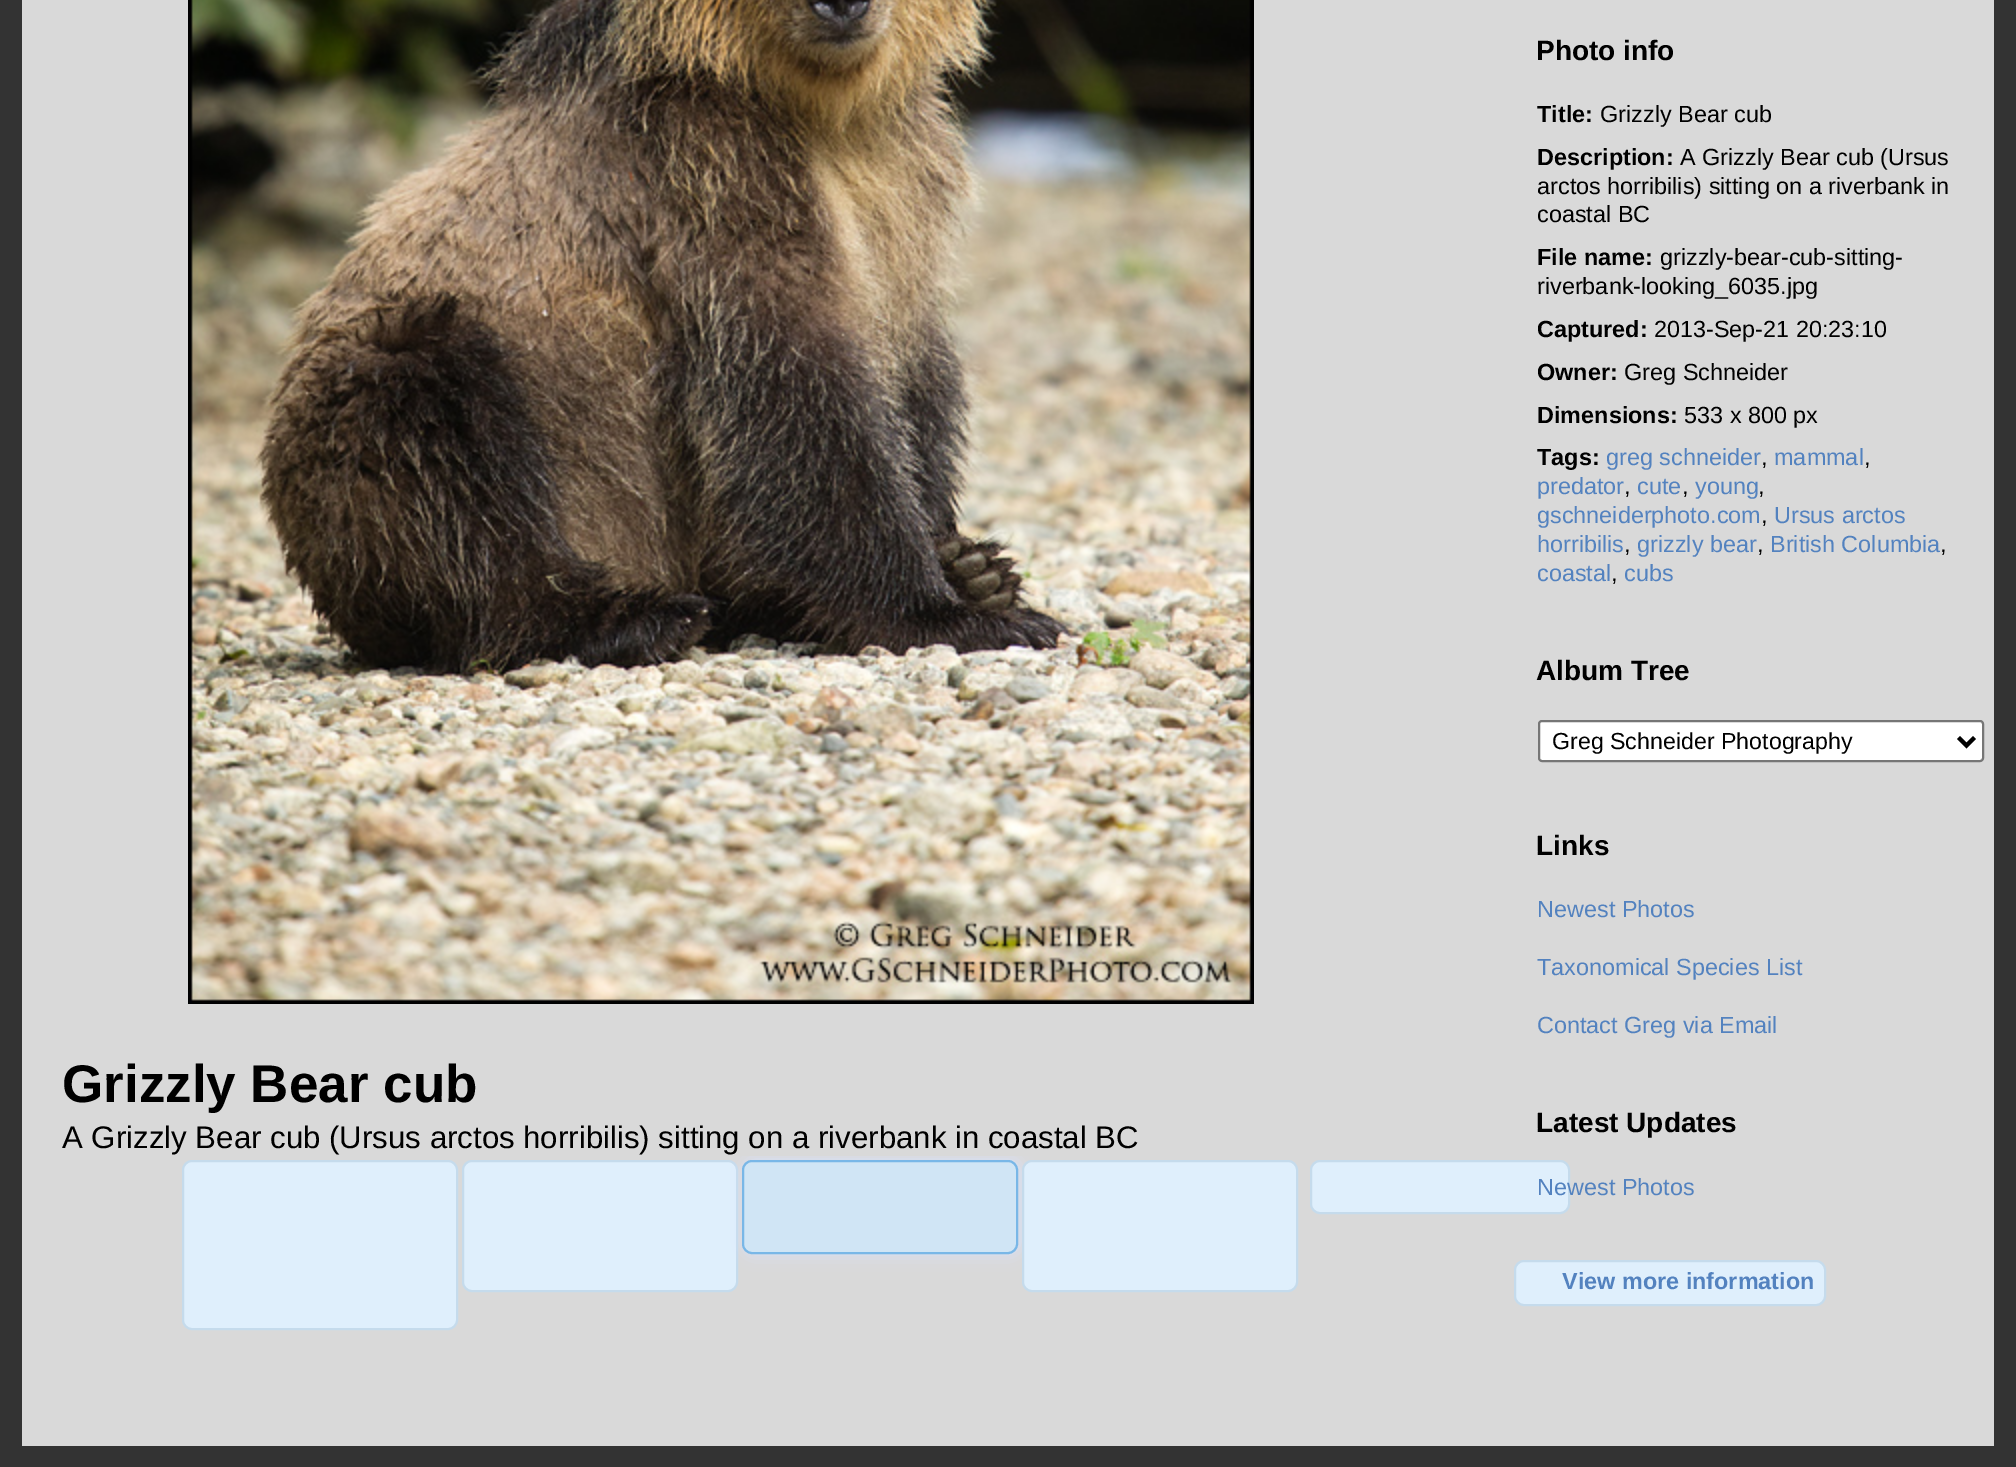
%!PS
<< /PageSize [2016 1467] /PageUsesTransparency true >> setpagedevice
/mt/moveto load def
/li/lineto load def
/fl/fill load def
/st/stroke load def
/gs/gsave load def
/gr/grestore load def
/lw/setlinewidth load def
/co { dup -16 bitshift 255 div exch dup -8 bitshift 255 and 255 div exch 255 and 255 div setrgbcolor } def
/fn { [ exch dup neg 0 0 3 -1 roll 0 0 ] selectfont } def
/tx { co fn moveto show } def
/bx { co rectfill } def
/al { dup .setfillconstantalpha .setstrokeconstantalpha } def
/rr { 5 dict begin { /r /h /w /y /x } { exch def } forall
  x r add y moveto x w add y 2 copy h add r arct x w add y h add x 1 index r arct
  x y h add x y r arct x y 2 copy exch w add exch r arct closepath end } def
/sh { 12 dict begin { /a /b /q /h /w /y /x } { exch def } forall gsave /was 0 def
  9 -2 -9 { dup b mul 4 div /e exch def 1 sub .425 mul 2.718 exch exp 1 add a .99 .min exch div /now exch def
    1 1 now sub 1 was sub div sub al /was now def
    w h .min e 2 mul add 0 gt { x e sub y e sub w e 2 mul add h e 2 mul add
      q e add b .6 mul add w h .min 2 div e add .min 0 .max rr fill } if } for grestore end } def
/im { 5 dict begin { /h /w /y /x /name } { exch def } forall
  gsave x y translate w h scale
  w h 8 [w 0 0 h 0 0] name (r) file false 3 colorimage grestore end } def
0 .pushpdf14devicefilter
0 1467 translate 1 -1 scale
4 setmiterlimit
0 0 2016 1467 16#333333 bx
22 0 1972 1446 16#D9D9D9 bx
(media/1.raw) 188 0 1066 1004 im
16#DFEFFC co
183 1161 274 168 9 rr gs fl gr
16#C5DBEC co
2 lw
st
16#DFEFFC co
463 1161 274 130 9 rr gs fl gr
16#C5DBEC co
st
gs
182 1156 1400 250 rectclip
16#D7E1FA co
744 1160 276 94 10 8 1 sh
gr
16#D0E5F5 co
743 1161 274 92 9 rr gs fl gr
16#79B7E7 co
st
16#DFEFFC co
1023 1161 274 130 9 rr gs fl gr
16#C5DBEC co
st
16#DFEFFC co
1311 1161 258 52 9 rr gs fl gr
16#C5DBEC co
st
16#FFFFFF co
1539 721 444 40 3 rr gs fl gr
16#767676 co
st
16#000000 co
4 lw
1958.5 737.5 mt 1966.5 745.5 li 1974.5 737.5 li st
16#DFEFFC co
1515 1261 310 44 9 rr gs fl gr
16#C5DBEC co
2 lw
st
(Grizzly Bear cub) 62 1102 /LiberationSans-Bold 53 16#000000 tx
(A Grizzly Bear cub \(Ursus arctos horribilis\) sitting on a riverbank in coastal BC) 62 1148 /LiberationSans-Regular 31.2 16#000000 tx
(Photo info) 1536 60 /LiberationSans-Bold 28 16#000000 tx
(Title:) 1537 122 /LiberationSans-Bold 23.4 16#000000 tx
(Grizzly Bear cub) 1600 122 /LiberationSans-Regular 23.4 16#000000 tx
(Description:) 1537 165 /LiberationSans-Bold 23.4 16#000000 tx
(A Grizzly Bear cub \(Ursus) 1680 165 /LiberationSans-Regular 23.4 16#000000 tx
(arctos horribilis\) sitting on a riverbank in) 1537 194 /LiberationSans-Regular 23.4 16#000000 tx
(coastal BC) 1537 222 /LiberationSans-Regular 23.4 16#000000 tx
(File name:) 1537 265 /LiberationSans-Bold 23.4 16#000000 tx
(grizzly-bear-cub-sitting-) 1660 265 /LiberationSans-Regular 23.4 16#000000 tx
(riverbank-looking_6035.jpg) 1537 294 /LiberationSans-Regular 23.4 16#000000 tx
(Captured:) 1537 337 /LiberationSans-Bold 23.4 16#000000 tx
(2013-Sep-21 20:23:10) 1654 337 /LiberationSans-Regular 23.4 16#000000 tx
(Owner:) 1537 380 /LiberationSans-Bold 23.4 16#000000 tx
(Greg Schneider) 1624 380 /LiberationSans-Regular 23.4 16#000000 tx
(Dimensions:) 1537 423 /LiberationSans-Bold 23.4 16#000000 tx
(533 x 800 px) 1684 423 /LiberationSans-Regular 23.4 16#000000 tx
(Tags:) 1537 465 /LiberationSans-Bold 23.4 16#000000 tx
(greg schneider) 1606 465 /LiberationSans-Regular 23.4 16#5382BF tx
(,) 1761 465 /LiberationSans-Regular 23.4 16#000000 tx
(mammal) 1774 465 /LiberationSans-Regular 23.4 16#5382BF tx
(,) 1864 465 /LiberationSans-Regular 23.4 16#000000 tx
(predator) 1537 494 /LiberationSans-Regular 23.4 16#5382BF tx
(,) 1624 494 /LiberationSans-Regular 23.4 16#000000 tx
(cute) 1637 494 /LiberationSans-Regular 23.4 16#5382BF tx
(,) 1682 494 /LiberationSans-Regular 23.4 16#000000 tx
(young) 1695 494 /LiberationSans-Regular 23.4 16#5382BF tx
(,) 1758 494 /LiberationSans-Regular 23.4 16#000000 tx
(gschneiderphoto.com) 1537 523 /LiberationSans-Regular 23.4 16#5382BF tx
(,) 1761 523 /LiberationSans-Regular 23.4 16#000000 tx
(Ursus arctos) 1774 523 /LiberationSans-Regular 23.4 16#5382BF tx
(horribilis) 1537 552 /LiberationSans-Regular 23.4 16#5382BF tx
(,) 1624 552 /LiberationSans-Regular 23.4 16#000000 tx
(grizzly bear) 1637 552 /LiberationSans-Regular 23.4 16#5382BF tx
(,) 1757 552 /LiberationSans-Regular 23.4 16#000000 tx
(British Columbia) 1770 552 /LiberationSans-Regular 23.4 16#5382BF tx
(,) 1940 552 /LiberationSans-Regular 23.4 16#000000 tx
(coastal) 1537 581 /LiberationSans-Regular 23.4 16#5382BF tx
(,) 1611 581 /LiberationSans-Regular 23.4 16#000000 tx
(cubs) 1624 581 /LiberationSans-Regular 23.4 16#5382BF tx
(Album Tree) 1536 680 /LiberationSans-Bold 28 16#000000 tx
(Greg Schneider Photography) 1552 749 /LiberationSans-Regular 23.2 16#000000 tx
(Links) 1536 855 /LiberationSans-Bold 28 16#000000 tx
(Newest Photos) 1537 917 /LiberationSans-Regular 23.4 16#5382BF tx
(Taxonomical Species List) 1537 975 /LiberationSans-Regular 23.4 16#5382BF tx
(Contact Greg via Email) 1537 1033 /LiberationSans-Regular 23.4 16#5382BF tx
(Latest Updates) 1536 1132 /LiberationSans-Bold 28 16#000000 tx
(Newest Photos) 1537 1195 /LiberationSans-Regular 23.4 16#5382BF tx
(View more information) 1562 1289 /LiberationSans-Bold 23.4 16#5382BF tx
.poppdf14devicefilter showpage
